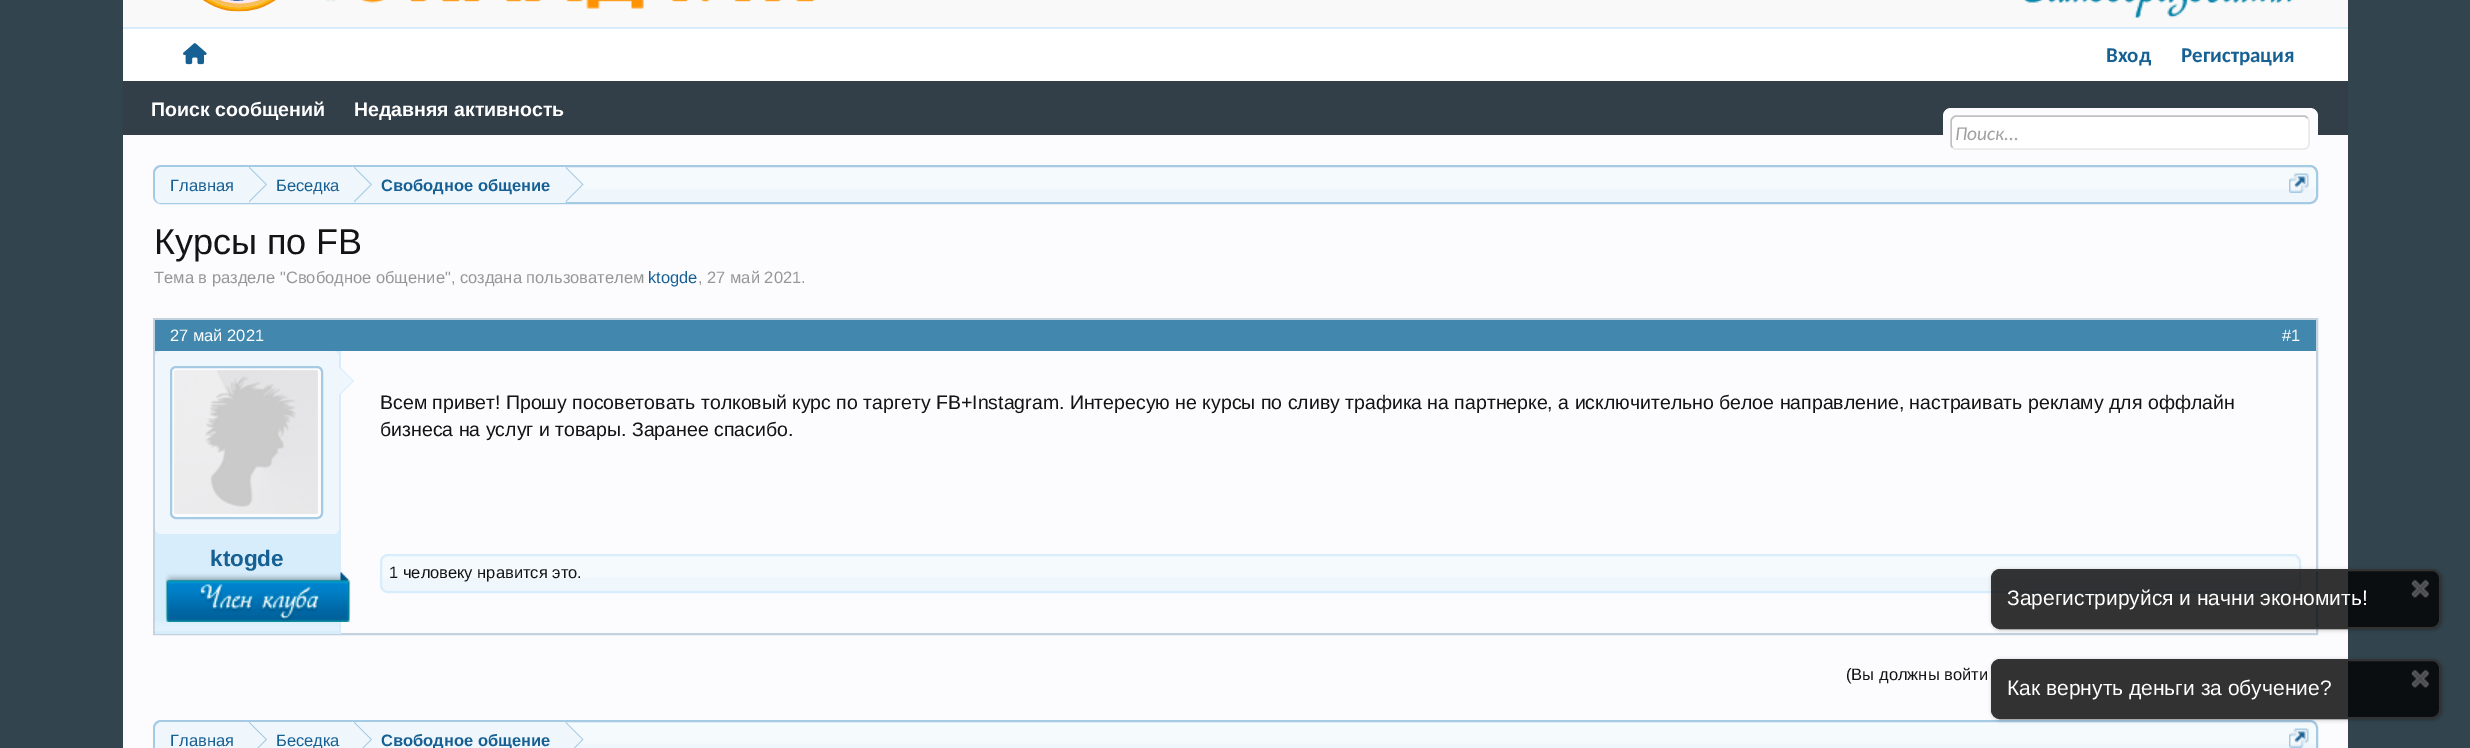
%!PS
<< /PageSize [2470 748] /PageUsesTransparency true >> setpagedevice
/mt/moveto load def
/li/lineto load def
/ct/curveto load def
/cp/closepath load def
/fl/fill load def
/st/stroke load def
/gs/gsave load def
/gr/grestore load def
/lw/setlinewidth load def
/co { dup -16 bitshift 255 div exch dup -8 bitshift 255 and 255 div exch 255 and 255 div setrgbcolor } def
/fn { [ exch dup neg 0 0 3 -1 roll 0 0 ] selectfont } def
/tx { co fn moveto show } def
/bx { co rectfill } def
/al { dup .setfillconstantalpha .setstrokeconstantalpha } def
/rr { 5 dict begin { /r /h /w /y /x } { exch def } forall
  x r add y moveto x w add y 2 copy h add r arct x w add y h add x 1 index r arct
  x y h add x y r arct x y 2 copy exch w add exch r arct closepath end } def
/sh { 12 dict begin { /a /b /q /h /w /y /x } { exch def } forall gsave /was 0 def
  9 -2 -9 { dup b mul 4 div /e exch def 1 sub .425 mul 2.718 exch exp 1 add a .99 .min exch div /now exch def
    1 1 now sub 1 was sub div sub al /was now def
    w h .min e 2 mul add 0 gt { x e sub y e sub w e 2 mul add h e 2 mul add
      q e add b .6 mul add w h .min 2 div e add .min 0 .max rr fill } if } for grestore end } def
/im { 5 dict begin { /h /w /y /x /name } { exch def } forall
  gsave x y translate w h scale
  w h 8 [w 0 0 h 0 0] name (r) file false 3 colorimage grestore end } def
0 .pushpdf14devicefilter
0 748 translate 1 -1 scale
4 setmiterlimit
0 0 2470 748 16#32454E bx
123 0 2225 27 16#F9F9F9 bx
(media/1.raw) 203 0 73 12 im
(media/2.raw) 326 0 489 9 im
(media/3.raw) 2024 0 269 18 im
123 81 2225 54 16#323F48 bx
123 29 2225 52 16#FFFFFF bx
123 27 2225 2 16#D7EDFC bx
(media/4.raw) 183 43 24 22 im
123 135 2225 613 16#FCFCFF bx
1943 108 375 42 8 rr fl
16#FFFFFF co
1950 116 360 34 6 rr fl
16#E9E9E9 co
1.5 lw
2307.5 118 mt 2308.5 119 2309 120 2309 121.5 ct 2309 144 li 2309 145.5 2308.5 146.5 2307.5 147.5 ct 2306.5 148.5 2305.5 149 2304 149 ct 1956 149 li 1954.5 149 1953.5 148.5 1952.5 147.5 ct st
16#C0C0C0 co
1952.5 147.5 mt 1951.5 146.5 1951 145.5 1951 144 ct 1951 121.5 li 1951 120 1951.5 119 1952.5 118 ct 1953.5 117 1954.5 116 1956 116 ct 2304 116 li 2305.5 116 2306.5 117 2307.5 118 ct st
16#F0F7FC co
153 165 2165 39 8 rr fl
(media/5.raw) 153 166 2164 23 im
16#A5CAE4 co
2 lw
154 166 2163 37 7 rr st
gs
155 167 2161 36 6 rr clip newpath
16#F0F7FC co
163 167 mt 249 167 li 249 204 li 163 204 li 158.5 204 155 200.5 155 196 ct 155 175 li 155 170.5 158.5 167 163 167 ct cp fl
gr
249 167 317 36 16#F0F7FC bx
16#A5CAE4 co
249 202.5 mt 249 166.5 li 267 184.5 li cp fl
16#F0F7FC co
247.5 202.5 mt 247.5 166.5 li 265.5 184.5 li cp fl
16#A5CAE4 co
354 202.5 mt 354 166.5 li 372 184.5 li cp fl
16#F0F7FC co
352.5 202.5 mt 352.5 166.5 li 370.5 184.5 li cp fl
16#A5CAE4 co
565.5 202.5 mt 565.5 166.5 li 583.5 184.5 li cp fl
16#F0F7FC co
564 202.5 mt 564 166.5 li 582 184.5 li cp fl
(media/6.raw) 2289 173 20 20 im
16#C2D2DF co
154 319 2163 315 rectstroke
155 320 2161 31 16#4187AE bx
155 351 184 281 16#D7EDFC bx
(media/7.raw) 154 621 185 10 im
339 351 2 282 16#D7EDFC bx
155 632 186 2 16#D7EDFC bx
16#F0F7FC co
155 351 184 183 6 rr fl
16#FCFCFF co
171 367 151 151 5 rr gs fl gr
16#A5CAE4 co
st
(media/8.raw) 174 370 144 144 im
16#D7EDFC co
339 396 mt 339 366 li 354 381 li cp fl
16#F0F7FC co
337.5 396 mt 337.5 366 li 352.5 381 li cp fl
(media/9.raw) 165 572 186 50 im
380 554 1921 39 8 rr fl
(media/10.raw) 380 555 1921 23 im
16#D7EDFC co
381 555 1919 37 7 rr st
gs
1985 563 mt 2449 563 li 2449 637 li 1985 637 li cp 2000 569 mt 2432 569 li 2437 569 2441 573 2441 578 ct 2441 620 li 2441 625 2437 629 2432 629 ct 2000 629 li 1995 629 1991 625 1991 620 ct 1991 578 li 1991 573 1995 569 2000 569 ct cp eoclip newpath
16#000000 co
1992 570 450 60 9 2 .25 sh
gr
0.8 al
16#000000 co
1992 570 448 58 8 rr fl
1 al
16#333333 co
1992 570 448 58 8 rr st
(media/11.raw) 2411 579 18 19 im
16#F0F7FC co
153 720 2165 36 8 rr fl
(media/5.raw) 153 721 2164 23 im
16#A5CAE4 co
154 721 2163 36 7 rr st
gs
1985 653 mt 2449 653 li 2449 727 li 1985 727 li cp 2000 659 mt 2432 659 li 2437 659 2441 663 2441 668 ct 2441 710 li 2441 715 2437 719 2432 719 ct 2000 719 li 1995 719 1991 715 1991 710 ct 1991 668 li 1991 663 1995 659 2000 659 ct cp eoclip newpath
16#000000 co
1992 660 450 60 9 2 .25 sh
gr
0.8 al
16#000000 co
1992 660 448 58 8 rr fl
1 al
16#333333 co
1992 660 448 58 8 rr st
(media/11.raw) 2411 669 18 19 im
16#F0F7FC co
163 722 mt 249 722 li 249 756 li 163 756 li 158.5 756 155 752.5 155 748 ct 155 730 li 155 725.5 158.5 722 163 722 ct cp fl
249 722 317 22 16#F0F7FC bx
16#A5CAE4 co
249 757.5 mt 249 721.5 li 267 739.5 li cp fl
16#F0F7FC co
247.5 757.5 mt 247.5 721.5 li 265.5 739.5 li cp fl
16#A5CAE4 co
354 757.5 mt 354 721.5 li 372 739.5 li cp fl
16#F0F7FC co
352.5 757.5 mt 352.5 721.5 li 370.5 739.5 li cp fl
16#A5CAE4 co
565.5 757.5 mt 565.5 721.5 li 583.5 739.5 li cp fl
16#F0F7FC co
564 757.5 mt 564 721.5 li 582 739.5 li cp fl
(media/6.raw) 2289 728 20 20 im
(Вход) 2106 62 /Carlito-Bold 21 16#176093 tx
(Регистрация) 2181 62 /Carlito-Bold 21 16#176093 tx
(Поиск сообщений) 151 116 /LiberationSans-Bold 19.5 16#FFFFFF tx
(Недавняя активность) 354 116 /LiberationSans-Bold 19.5 16#FFFFFF tx
(Поиск...) 1955 140 /Carlito-Italic 19.5 16#A0A0A0 tx
(Главная) 170 191 /LiberationSans-Regular 16.5 16#176093 tx
(Беседка) 276 191 /LiberationSans-Regular 16.5 16#176093 tx
(Свободное общение) 381 191 /LiberationSans-Bold 16.5 16#176093 tx
(Курсы по FB) 154 254 /LiberationSans-Regular 36 16#141414 tx
(Тема в разделе "Свободное общение", создана пользователем) 154 283 /LiberationSans-Regular 16.5 16#969696 tx
(ktogde) 648 283 /LiberationSans-Regular 16.5 16#176093 tx
(, 27 май 2021.) 698 283 /LiberationSans-Regular 16.5 16#969696 tx
(27 май 2021) 170 341 /LiberationSans-Regular 16.5 16#FFFFFF tx
(#1) 2282 341 /LiberationSans-Regular 16.5 16#FFFFFF tx
(ktogde) 210 566 /LiberationSans-Bold 22.5 16#176093 tx
(Всем привет! Прошу посоветовать толковый курс по таргету FB+Instagram. Интересую не курсы по сливу трафика на партнерке, а исключительно белое направление, настраивать рекламу для оффлайн) 380 409 /LiberationSans-Regular 19.5 16#141414 tx
(бизнеса на услуг и товары. Заранее спасибо.) 380 436 /LiberationSans-Regular 19.5 16#141414 tx
(1 человеку нравится это.) 389 578 /LiberationSans-Regular 16.5 16#141414 tx
(\(Вы должны войти) 1846 680 /LiberationSans-Regular 16.5 16#141414 tx
(Зарегистрируйся и начни экономить!) 2007 605 /LiberationSans-Regular 21 16#FFFFFF tx
(Как вернуть деньги за обучение?) 2007 695 /LiberationSans-Regular 21 16#FFFFFF tx
(Главная) 170 746 /LiberationSans-Regular 16.5 16#176093 tx
(Беседка) 276 746 /LiberationSans-Regular 16.5 16#176093 tx
(Свободное общение) 381 746 /LiberationSans-Bold 16.5 16#176093 tx
.poppdf14devicefilter showpage
